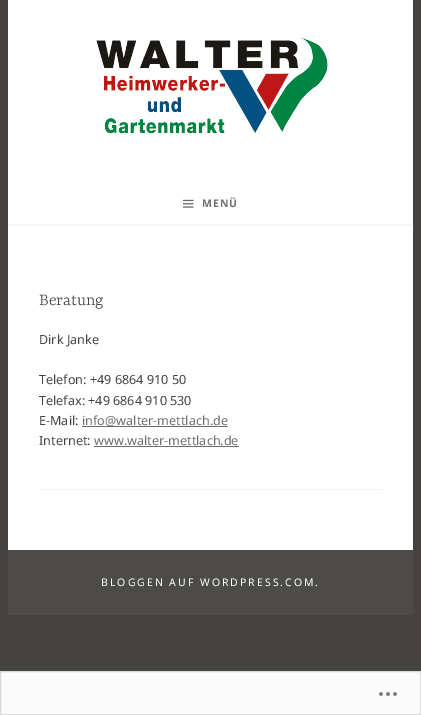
%!PS
<< /PageSize [421 715] >> setpagedevice
/mt/moveto load def
/li/lineto load def
/cp/closepath load def
/fl/fill load def
/st/stroke load def
/gs/gsave load def
/gr/grestore load def
/co { dup -16 bitshift 255 div exch dup -8 bitshift 255 and 255 div exch 255 and 255 div setrgbcolor } def
/fn { [ exch dup neg 0 0 3 -1 roll 0 0 ] selectfont } def
/tx { co fn moveto show } def
/bx { co rectfill } def
/im { 5 dict begin { /h /w /y /x /name } { exch def } forall
  gsave x y translate w h scale
  w h 8 [w 0 0 h 0 0] name (r) file false 3 colorimage grestore end } def
0 715 translate 1 -1 scale
4 setmiterlimit
0 0 421 715 16#444340 bx
8 0 405 224 16#FFFFFF bx
(media/1.raw) 96 37 232 97 im
8 224 405 2 16#F7F7F7 bx
(media/2.raw) 183 199 11 9 im
8 226 405 324 16#FFFFFF bx
82 426 146 1 16#6D6D6D bx
94 446 145 1 16#6D6D6D bx
39 489 343 1 16#F2F2F2 bx
8 550 405 65 16#4C4B47 bx
16#FBFBFB co
.5 671.5 mt 420.5 671.5 li 420.5 714.5 li .5 714.5 li cp gs fl gr
16#D9D9DB co
st
(media/3.raw) 379 692 18 4 im
/NotoSans-Bold 10.5 fn
16#6D6D6D co
202 207 mt 1 0 (MENÜ) ashow
(Beratung) 39 305 /Yrsa-Light 18 16#444340 tx
(Dirk Janke) 39 344 /NotoSans-Regular 12.6 16#444340 tx
(Telefon: +49 6864 910 50) 39 384 /NotoSans-Regular 12.6 16#444340 tx
(Telefax: +49 6864 910 530) 39 405 /NotoSans-Regular 12.6 16#444340 tx
(E-Mail:) 39 425 /NotoSans-Regular 12.6 16#444340 tx
(info@walter-mettlach.de) 82 425 /NotoSans-Regular 12.6 16#6D6D6D tx
(Internet:) 39 445 /NotoSans-Regular 12.6 16#444340 tx
(www.walter-mettlach.de) 94 445 /NotoSans-Regular 12.6 16#6D6D6D tx
/NotoSans-Regular 10.5 fn
16#FFFFFF co
101 586 mt 2 0 (BLOGGEN AUF WORDPRESS.COM.) ashow
showpage
